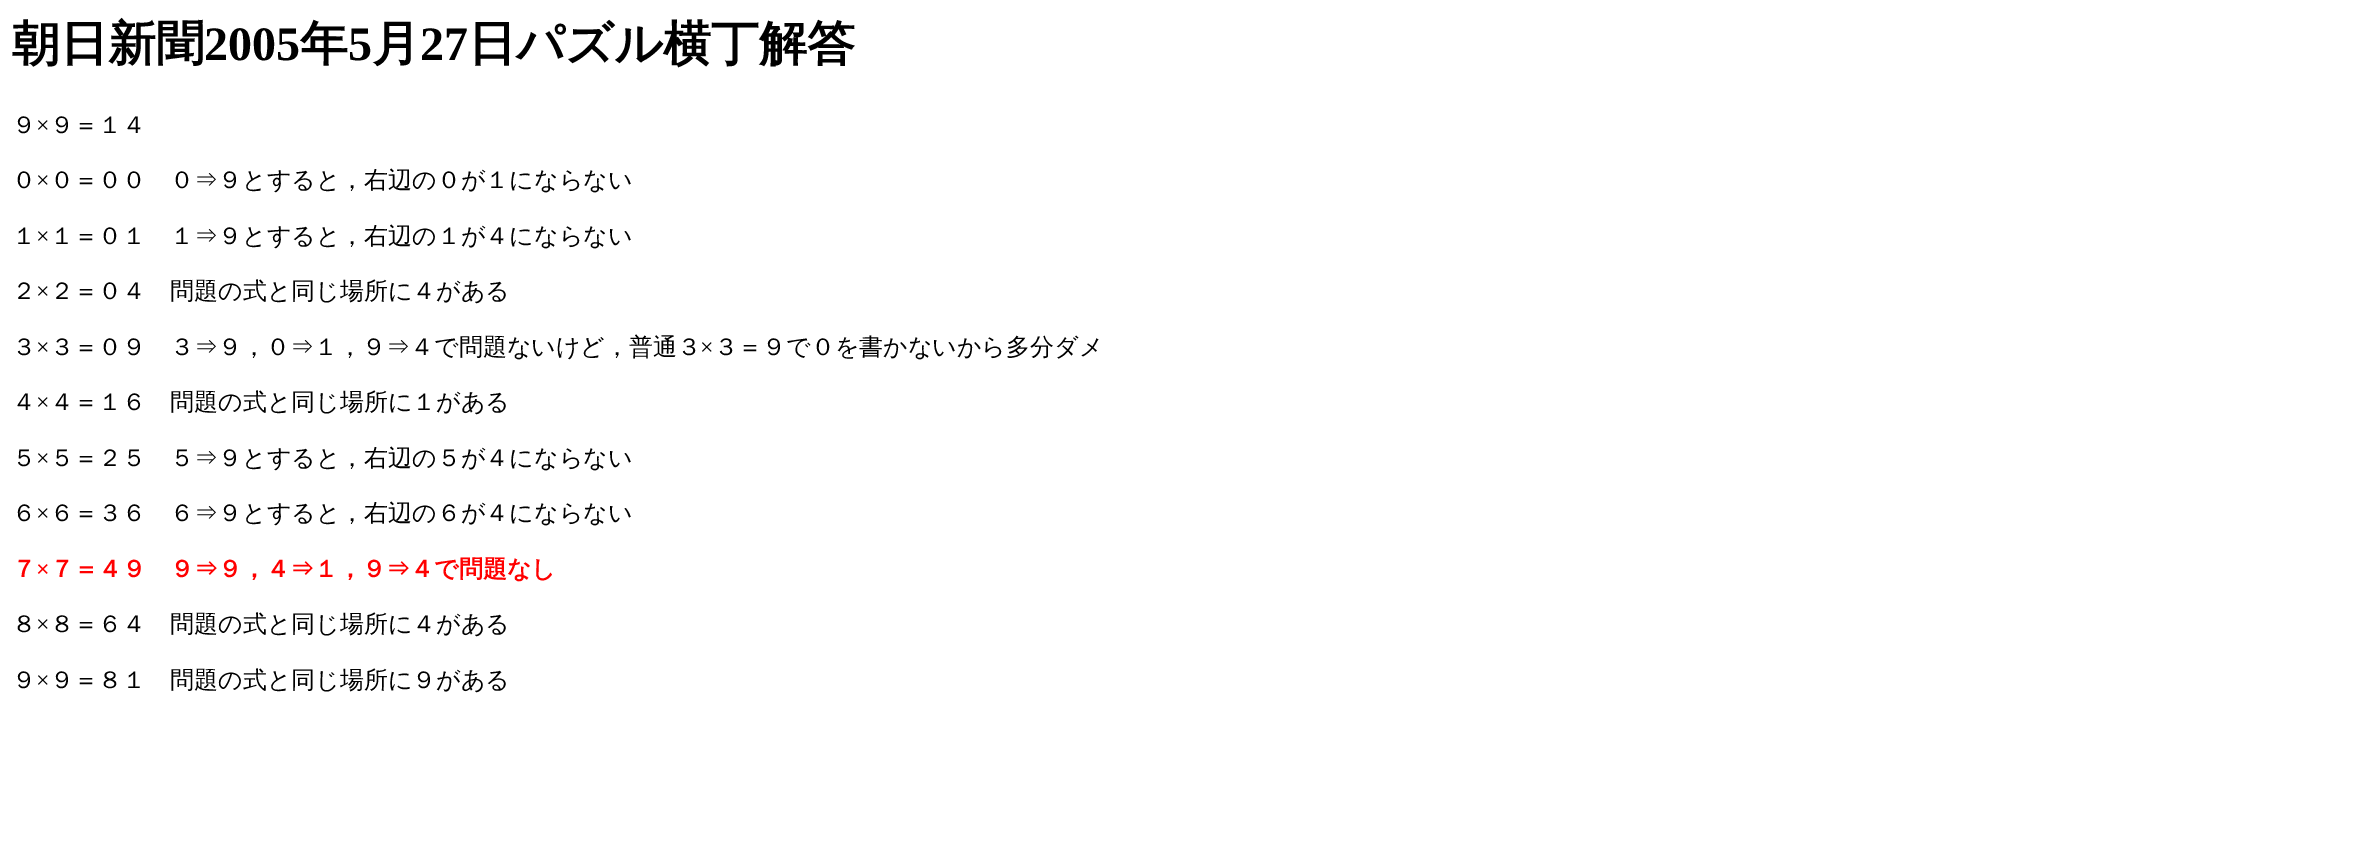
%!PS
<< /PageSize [2358 865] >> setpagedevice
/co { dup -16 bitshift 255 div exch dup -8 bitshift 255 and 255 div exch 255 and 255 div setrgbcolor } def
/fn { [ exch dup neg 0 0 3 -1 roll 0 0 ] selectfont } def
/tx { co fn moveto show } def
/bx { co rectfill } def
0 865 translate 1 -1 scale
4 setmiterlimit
0 0 2358 865 16#FFFFFF bx
(朝日新聞) 12 60 /WenQuanYiZenHei-Bold 48 16#000000 tx
(2005) 204 60 /LiberationSerif-Bold 48 16#000000 tx
(年) 300 60 /WenQuanYiZenHei-Bold 48 16#000000 tx
(5) 348 60 /LiberationSerif-Bold 48 16#000000 tx
(月) 372 60 /WenQuanYiZenHei-Bold 48 16#000000 tx
(27) 420 60 /LiberationSerif-Bold 48 16#000000 tx
(日パズル横丁解答) 468 60 /WenQuanYiZenHei-Bold 48 16#000000 tx
(９) 12 133 /WenQuanYiZenHei-Medium 24 16#000000 tx
(×) 36 133 /LiberationSerif-Regular 24 16#000000 tx
(９＝１４) 50 133 /WenQuanYiZenHei-Medium 24 16#000000 tx
(０) 12 188 /WenQuanYiZenHei-Medium 24 16#000000 tx
(×) 36 188 /LiberationSerif-Regular 24 16#000000 tx
(０＝００　０⇒９とすると，右辺の０が１にならない) 50 188 /WenQuanYiZenHei-Medium 24 16#000000 tx
(１) 12 244 /WenQuanYiZenHei-Medium 24 16#000000 tx
(×) 36 244 /LiberationSerif-Regular 24 16#000000 tx
(１＝０１　１⇒９とすると，右辺の１が４にならない) 50 244 /WenQuanYiZenHei-Medium 24 16#000000 tx
(２) 12 299 /WenQuanYiZenHei-Medium 24 16#000000 tx
(×) 36 299 /LiberationSerif-Regular 24 16#000000 tx
(２＝０４　問題の式と同じ場所に４がある) 50 299 /WenQuanYiZenHei-Medium 24 16#000000 tx
(３) 12 355 /WenQuanYiZenHei-Medium 24 16#000000 tx
(×) 36 355 /LiberationSerif-Regular 24 16#000000 tx
(３＝０９　３⇒９，０⇒１，９⇒４で問題ないけど，普通３) 50 355 /WenQuanYiZenHei-Medium 24 16#000000 tx
(×) 700 355 /LiberationSerif-Regular 24 16#000000 tx
(３＝９で０を書かないから多分ダメ) 714 355 /WenQuanYiZenHei-Medium 24 16#000000 tx
(４) 12 410 /WenQuanYiZenHei-Medium 24 16#000000 tx
(×) 36 410 /LiberationSerif-Regular 24 16#000000 tx
(４＝１６　問題の式と同じ場所に１がある) 50 410 /WenQuanYiZenHei-Medium 24 16#000000 tx
(５) 12 466 /WenQuanYiZenHei-Medium 24 16#000000 tx
(×) 36 466 /LiberationSerif-Regular 24 16#000000 tx
(５＝２５　５⇒９とすると，右辺の５が４にならない) 50 466 /WenQuanYiZenHei-Medium 24 16#000000 tx
(６) 12 521 /WenQuanYiZenHei-Medium 24 16#000000 tx
(×) 36 521 /LiberationSerif-Regular 24 16#000000 tx
(６＝３６　６⇒９とすると，右辺の６が４にならない) 50 521 /WenQuanYiZenHei-Medium 24 16#000000 tx
(７) 12 577 /WenQuanYiZenHei-Bold 24 16#FF0000 tx
(×) 36 577 /LiberationSerif-Bold 24 16#FF0000 tx
(７＝４９　９⇒９，４⇒１，９⇒４で問題なし) 50 577 /WenQuanYiZenHei-Bold 24 16#FF0000 tx
(８) 12 632 /WenQuanYiZenHei-Medium 24 16#000000 tx
(×) 36 632 /LiberationSerif-Regular 24 16#000000 tx
(８＝６４　問題の式と同じ場所に４がある) 50 632 /WenQuanYiZenHei-Medium 24 16#000000 tx
(９) 12 688 /WenQuanYiZenHei-Medium 24 16#000000 tx
(×) 36 688 /LiberationSerif-Regular 24 16#000000 tx
(９＝８１　問題の式と同じ場所に９がある) 50 688 /WenQuanYiZenHei-Medium 24 16#000000 tx
showpage
